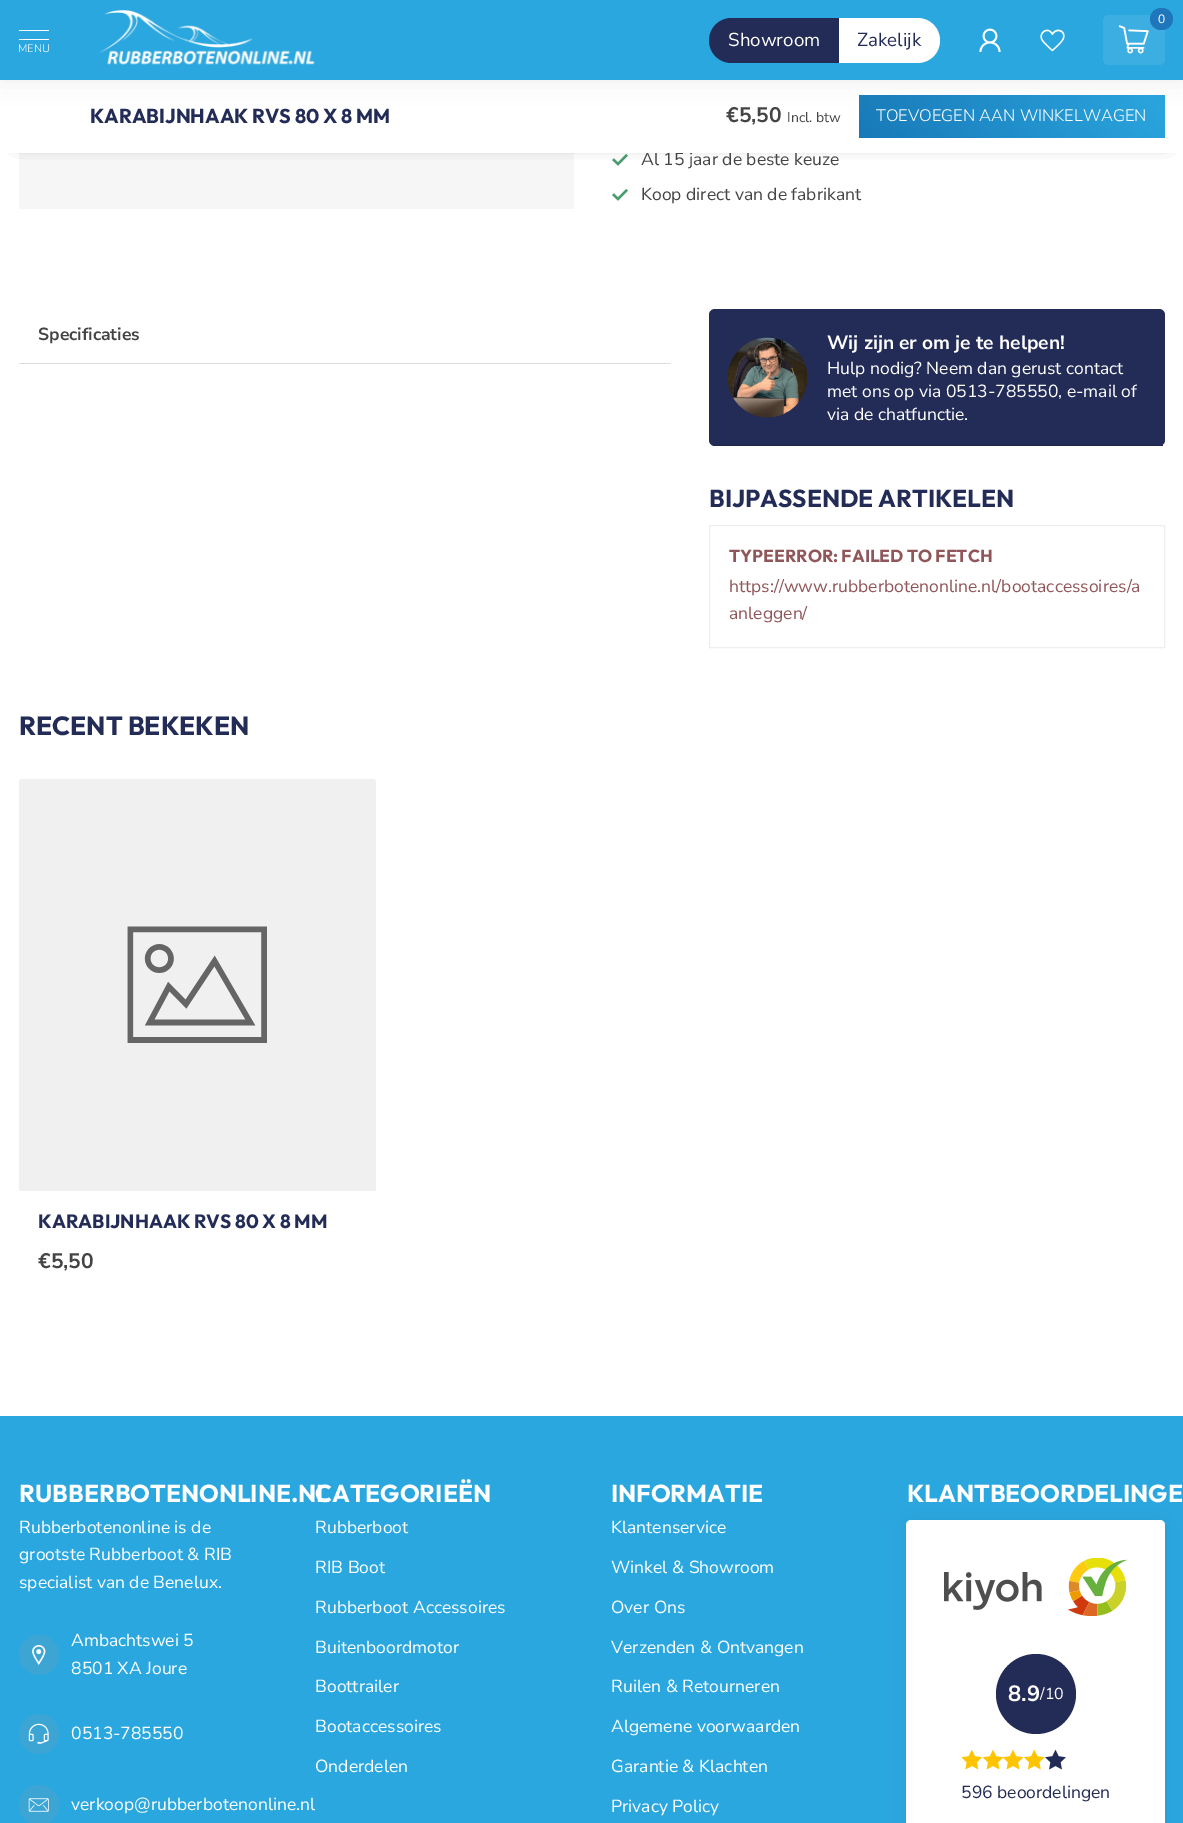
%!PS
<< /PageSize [1183 1823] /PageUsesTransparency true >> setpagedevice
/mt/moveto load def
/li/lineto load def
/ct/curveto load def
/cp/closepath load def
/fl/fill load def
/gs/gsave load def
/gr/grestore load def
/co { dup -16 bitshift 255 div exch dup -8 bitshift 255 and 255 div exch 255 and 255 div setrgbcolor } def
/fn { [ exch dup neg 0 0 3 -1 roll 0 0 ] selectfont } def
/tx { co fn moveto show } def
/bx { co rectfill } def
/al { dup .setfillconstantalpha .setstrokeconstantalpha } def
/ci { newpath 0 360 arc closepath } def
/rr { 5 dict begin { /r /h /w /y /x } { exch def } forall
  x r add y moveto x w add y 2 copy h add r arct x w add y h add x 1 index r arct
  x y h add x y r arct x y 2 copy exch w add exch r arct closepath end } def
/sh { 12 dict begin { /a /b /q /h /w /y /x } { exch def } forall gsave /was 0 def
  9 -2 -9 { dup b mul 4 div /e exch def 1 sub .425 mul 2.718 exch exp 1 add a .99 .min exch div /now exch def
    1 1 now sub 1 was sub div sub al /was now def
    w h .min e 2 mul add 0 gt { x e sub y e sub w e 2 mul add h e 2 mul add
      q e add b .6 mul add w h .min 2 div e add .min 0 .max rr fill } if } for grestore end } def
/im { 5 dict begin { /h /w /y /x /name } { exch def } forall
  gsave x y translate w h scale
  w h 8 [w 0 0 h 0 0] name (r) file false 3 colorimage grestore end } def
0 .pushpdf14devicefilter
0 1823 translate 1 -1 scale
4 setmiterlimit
0 0 1183 1823 16#FFFFFF bx
19 153 555 56 16#F6F6F6 bx
(media/5.raw) 612 153 16 13 im
16#444444 co
18 100 1148 38 0 9.5 1 sh
(media/5.raw) 612 188 16 13 im
19 363 652 1 16#DDDDDD bx
16#232C57 co
709 309 456 137 6 rr fl
713 445 450 1 16#1F274E bx
(media/6.raw) 727 337 81 81 im
16#EEEEEE co
709.5 525.5 455 122 rectstroke
(media/7.raw) 19 779 357 412 im
0.06 al
19 779 357 412 16#9B9B9B bx
1 al
0 1416 1183 407 16#2BA7DF bx
16#3DA5D4 co
39 1655 20 ci fl
(media/8.raw) 32 1645 14 20 im
39 1734 20 ci fl
(media/9.raw) 28 1723 21 21 im
39 1805 20 ci fl
(media/10.raw) 28 1798 21 14 im
16#000000 co
913 1526 246 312 0 11 .08 sh
16#FFFFFF co
906 1520 259 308 5 rr fl
(media/11.raw) 944 1558 183 58 im
16#232C57 co
1036 1694 40 ci fl
(media/12.raw) 961 1749 22 21 im
(media/13.raw) 982 1749 22 21 im
(media/14.raw) 1002 1749 22 21 im
(media/15.raw) 1023 1749 22 21 im
(media/16.raw) 1045 1749 21 21 im
(Al 15 jaar de beste keuze) 641 165 /NunitoSans-Regular 17.5 16#444444 tx
0 80 1183 73 16#FFFFFF bx
gs 859 95 306 43 2.5 rr clip newpath
<< /ShadingType 2 /ColorSpace /DeviceRGB /Coords [925 203 1099 29] /Extend [true true] /Function << /FunctionType 2 /Domain [0 1] /C0 [.094 .475 .722] /C1 [.169 .655 .878] /N 1 >> >> shfill gr
16#000000 co
0 -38 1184 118 0 12.5 .07 sh
0 0 1183 80 16#2BA7DF bx
16#3DAEE2 co
1103 15 62 50 6 rr fl
16#2076BB co
1150 8 23 22 11 rr fl
(0) 1158 23 /NunitoSans-Regular 12 16#FFFFFF tx
(media/2.raw) 1118 25 31 29 im
(MENU) 18 52 /NunitoSans-Light 11 16#FFFFFF tx
19 39 30 1 16#FFFFFF bx
19 30 30 1 16#FFFFFF bx
839 18 mt 917.5 18 li 930 18 940 28 940 40.5 ct 940 53 930 63 917.5 63 ct 839 63 li cp fl
(Zakelijk) 857 46 /NunitoSans-Regular 18.75 16#232C57 tx
731.5 18 mt 839 18 li 839 63 li 731.5 63 li 719 63 709 53 709 40.5 ct 709 28 719 18 731.5 18 ct cp fl
(Showroom) 728 46 /NunitoSans-Regular 18.75 16#FFFFFF tx
(media/4.raw) 1040 29 25 23 im
(media/3.raw) 979 28 22 24 im
(media/1.raw) 99 10 216 55 im
(TOEVOEGEN AAN WINKELWAGEN) 876 121 /NunitoSans-Light 16.6 16#FFFFFF tx
(Incl. btw) 787 122 /NunitoSans-Regular 14 16#444444 tx
(€5,50) 726 122 /NunitoSans-Bold 21 16#444444 tx
(KARABIJNHAAK RVS 80 X 8 MM) 90 123 /Outfit-Bold 20 16#232C57 tx
(Koop direct van de fabrikant) 641 200 /NunitoSans-Regular 17.5 16#444444 tx
(Specificaties) 38 340 /NunitoSans-Bold 17.5 16#444444 tx
(Wij zijn er om je te helpen!) 827 349 /NunitoSans-Bold 19.25 16#FFFFFF tx
(Hulp nodig? Neem dan gerust contact) 827 374 /NunitoSans-Regular 17.5 16#FFFFFF tx
(met ons op via 0513-785550, e-mail of) 827 397 /NunitoSans-Regular 17.5 16#FFFFFF tx
(via de chatfunctie.) 827 420 /NunitoSans-Regular 17.5 16#FFFFFF tx
(BIJPASSENDE ARTIKELEN) 709 507 /Outfit-Bold 24.5 16#232C57 tx
(TYPEERROR: FAILED TO FETCH) 729 562 /Outfit-Bold 17.5 16#905659 tx
(https://www.rubberbotenonline.nl/bootaccessoires/a) 729 592 /NunitoSans-Regular 17.5 16#905659 tx
(anleggen/) 729 619 /NunitoSans-Regular 17.5 16#905659 tx
(RECENT BEKEKEN) 19 735 /Outfit-Bold 26.25 16#232C57 tx
(KARABIJNHAAK RVS 80 X 8 MM) 38 1228 /Outfit-Bold 19.25 16#232C57 tx
(€5,50) 38 1268 /NunitoSans-Bold 21 16#444444 tx
(RUBBERBOTENONLINE.NL) 19 1502 /Outfit-Bold 24.5 16#FFFFFF tx
(Rubberbotenonline is de) 19 1533 /NunitoSans-Regular 17.5 16#FFFFFF tx
(grootste Rubberboot & RIB) 19 1560 /NunitoSans-Regular 17.5 16#FFFFFF tx
(specialist van de Benelux.) 19 1588 /NunitoSans-Regular 17.5 16#FFFFFF tx
(Ambachtswei 5) 71 1646 /NunitoSans-Regular 17.5 16#FFFFFF tx
(8501 XA Joure) 71 1674 /NunitoSans-Regular 17.5 16#FFFFFF tx
(0513-785550) 71 1739 /NunitoSans-Regular 17.5 16#FFFFFF tx
(verkoop@rubberbotenonline.nl) 71 1810 /NunitoSans-Regular 17.5 16#FFFFFF tx
(CATEGORIEËN) 315 1502 /Outfit-Bold 24.5 16#FFFFFF tx
(Rubberboot) 315 1533 /NunitoSans-Regular 17.5 16#FFFFFF tx
(RIB Boot) 315 1573 /NunitoSans-Regular 17.5 16#FFFFFF tx
(Rubberboot Accessoires) 315 1613 /NunitoSans-Regular 17.5 16#FFFFFF tx
(Buitenboordmotor) 315 1653 /NunitoSans-Regular 17.5 16#FFFFFF tx
(Boottrailer) 315 1692 /NunitoSans-Regular 17.5 16#FFFFFF tx
(Bootaccessoires) 315 1732 /NunitoSans-Regular 17.5 16#FFFFFF tx
(Onderdelen) 315 1772 /NunitoSans-Regular 17.5 16#FFFFFF tx
(INFORMATIE) 611 1502 /Outfit-Bold 24.5 16#FFFFFF tx
(Klantenservice) 611 1533 /NunitoSans-Regular 17.5 16#FFFFFF tx
(Winkel & Showroom) 611 1573 /NunitoSans-Regular 17.5 16#FFFFFF tx
(Over Ons) 611 1613 /NunitoSans-Regular 17.5 16#FFFFFF tx
(Verzenden & Ontvangen) 611 1653 /NunitoSans-Regular 17.5 16#FFFFFF tx
(Ruilen & Retourneren) 611 1692 /NunitoSans-Regular 17.5 16#FFFFFF tx
(Algemene voorwaarden) 611 1732 /NunitoSans-Regular 17.5 16#FFFFFF tx
(Garantie & Klachten) 611 1772 /NunitoSans-Regular 17.5 16#FFFFFF tx
(Privacy Policy) 611 1812 /NunitoSans-Regular 17.5 16#FFFFFF tx
(KLANTBEOORDELINGE) 907 1502 /Outfit-Bold 24.5 16#FFFFFF tx
(8.9) 1008 1701 /NunitoSans-Bold 22 16#FFFFFF tx
(/10) 1040 1699 /NunitoSans-Regular 16 16#FFFFFF tx
(596 beoordelingen) 961 1798 /NunitoSans-Regular 17.5 16#232C57 tx
.poppdf14devicefilter showpage
